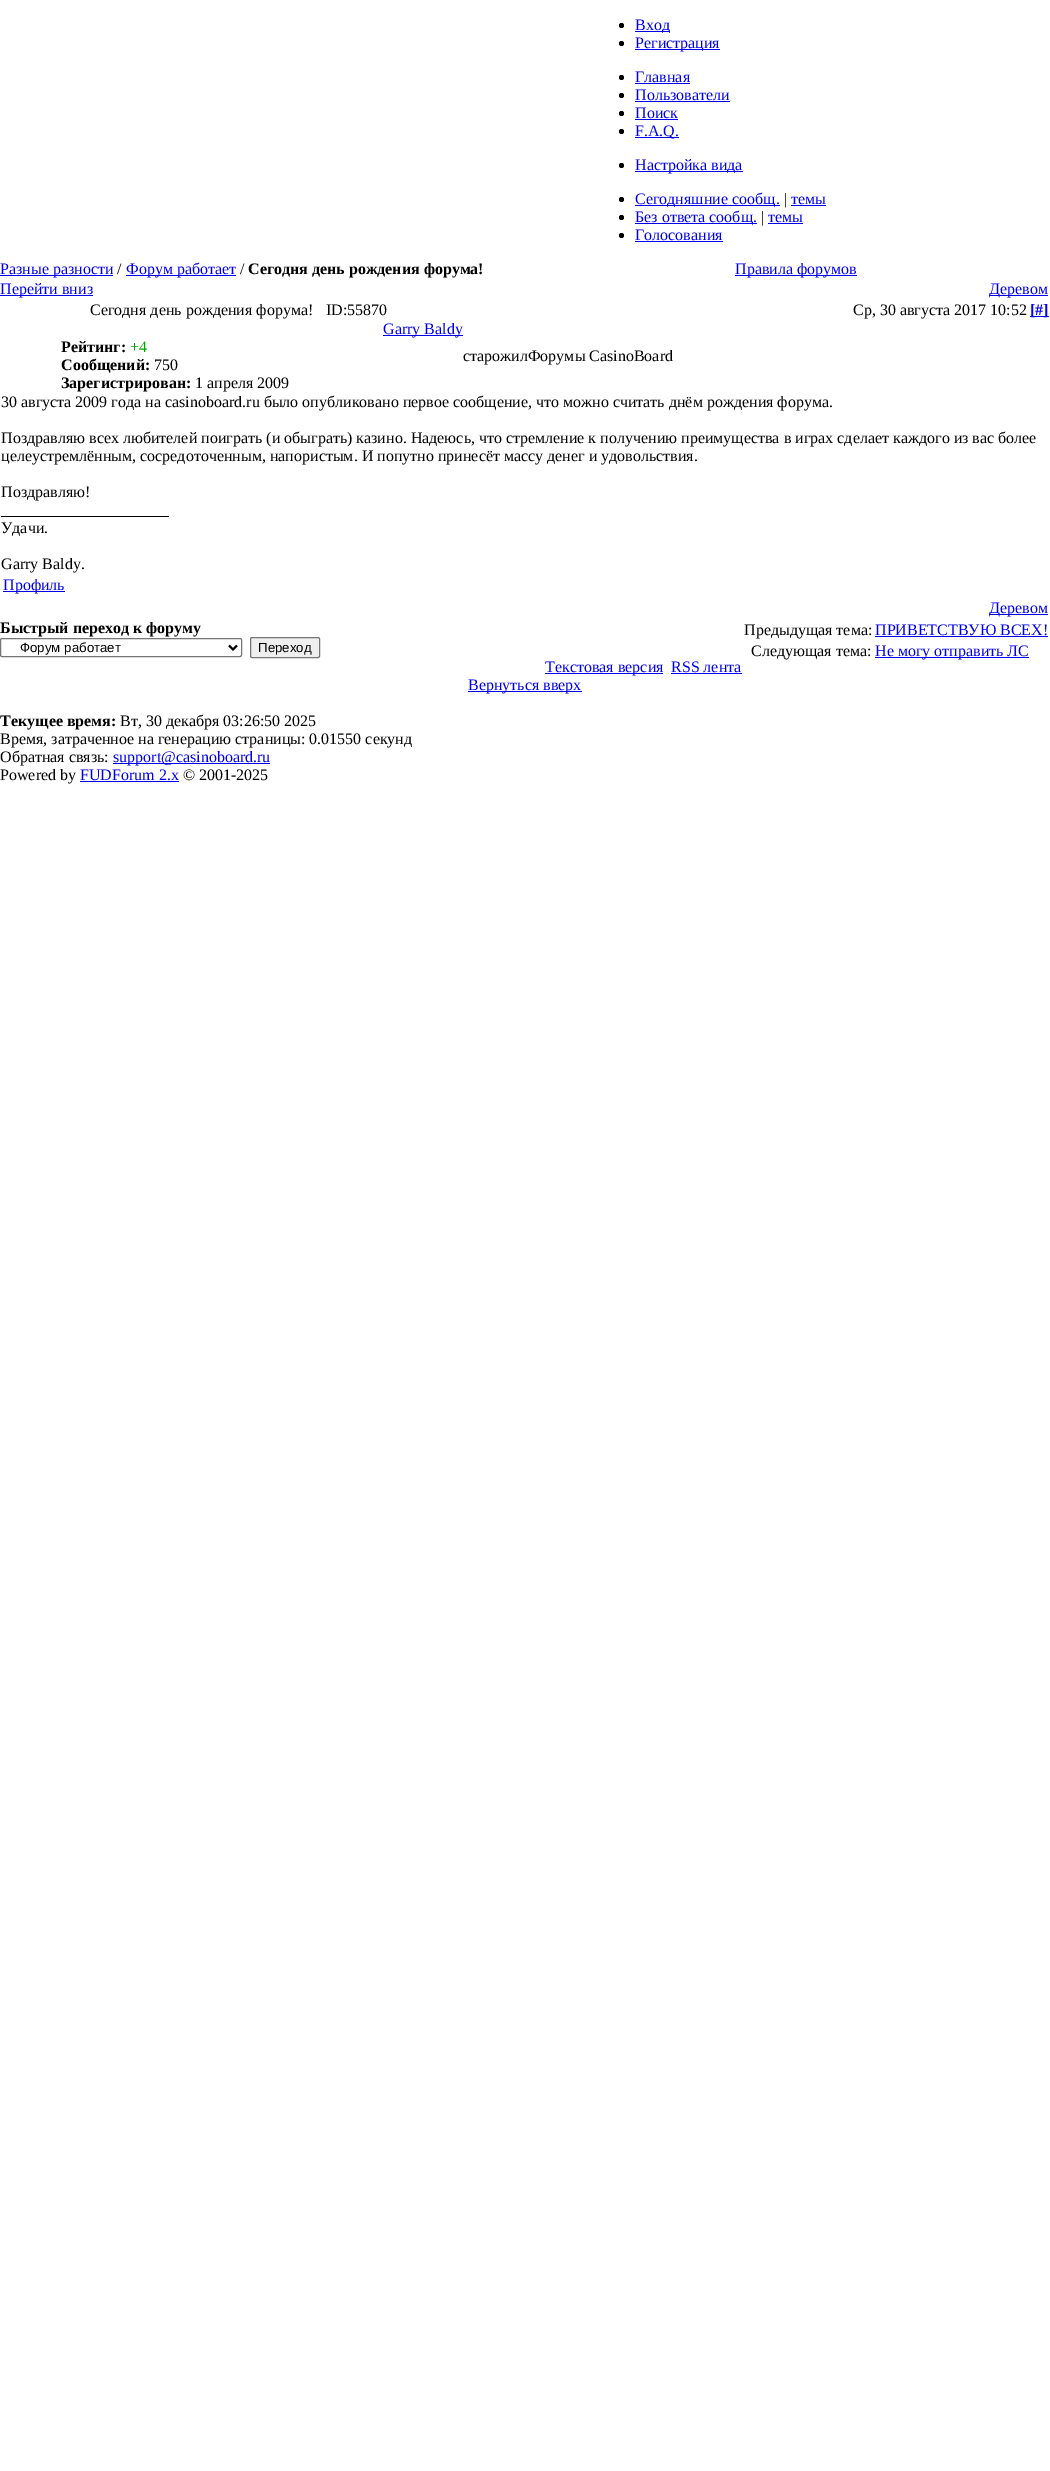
%!PS
<< /PageSize [1050 2471] >> setpagedevice
/mt/moveto load def
/li/lineto load def
/fl/fill load def
/st/stroke load def
/gs/gsave load def
/gr/grestore load def
/lw/setlinewidth load def
/co { dup -16 bitshift 255 div exch dup -8 bitshift 255 and 255 div exch 255 and 255 div setrgbcolor } def
/fn { [ exch dup neg 0 0 3 -1 roll 0 0 ] selectfont } def
/tx { co fn moveto show } def
/bx { co rectfill } def
/ci { newpath 0 360 arc closepath } def
/rr { 5 dict begin { /r /h /w /y /x } { exch def } forall
  x r add y moveto x w add y 2 copy h add r arct x w add y h add x 1 index r arct
  x y h add x y r arct x y 2 copy exch w add exch r arct closepath end } def
0 2471 translate 1 -1 scale
4 setmiterlimit
0 0 1050 2471 16#FFFFFF bx
16#000000 co
621.5 25.5 2.5 ci fl
635 31 35 1 16#0000EE bx
16#000000 co
621.5 43.5 2.5 ci fl
635 49 85 1 16#0000EE bx
16#000000 co
621.5 77.5 2.5 ci fl
635 83 55 1 16#0000EE bx
16#000000 co
621.5 95.5 2.5 ci fl
635 101 95 1 16#0000EE bx
16#000000 co
621.5 113.5 2.5 ci fl
635 119 43 1 16#0000EE bx
16#000000 co
621.5 131.5 2.5 ci fl
635 137 44 1 16#0000EE bx
16#000000 co
621.5 165.5 2.5 ci fl
635 171 108 1 16#0000EE bx
16#000000 co
621.5 199.5 2.5 ci fl
635 205 145 1 16#0000EE bx
791 205 35 1 16#0000EE bx
16#000000 co
621.5 217.5 2.5 ci fl
635 223 122 1 16#0000EE bx
768 223 35 1 16#0000EE bx
16#000000 co
621.5 235.5 2.5 ci fl
635 241 88 1 16#0000EE bx
0 275 113 1 16#0000EE bx
126 275 110 1 16#0000EE bx
735 275 122 1 16#0000EE bx
0 295 93 1 16#0000EE bx
989 295 59 1 16#0000EE bx
1030 316 19 1 16#0000EE bx
383 335 80 1 16#0000EE bx
1 516 168 1 16#000000 bx
3 591 62 1 16#0000EE bx
989 614 59 1 16#0000EE bx
875 636 173 1 16#0000EE bx
875 657 154 1 16#0000EE bx
16#767676 co
.5 638.5 241 18 1.5 rr st
16#000000 co
2 lw
229 645.5 mt 233 649.5 li 237 645.5 li st
16#EFEFEF co
250.5 637.5 69 20 1.5 rr gs fl gr
16#767676 co
1 lw
st
545 673 118 1 16#0000EE bx
671 673 71 1 16#0000EE bx
468 691 114 1 16#0000EE bx
113 763 157 1 16#0000EE bx
80 781 99 1 16#0000EE bx
(Вход) 635 30 /LiberationSerif-Regular 16 16#0000EE tx
(Регистрация) 635 48 /LiberationSerif-Regular 16 16#0000EE tx
(Главная) 635 82 /LiberationSerif-Regular 16 16#0000EE tx
(Пользователи) 635 100 /LiberationSerif-Regular 16 16#0000EE tx
(Поиск) 635 118 /LiberationSerif-Regular 16 16#0000EE tx
(F.A.Q.) 635 136 /LiberationSerif-Regular 16 16#0000EE tx
(Настройка вида) 635 170 /LiberationSerif-Regular 16 16#0000EE tx
(Сегодняшние сообщ.) 635 204 /LiberationSerif-Regular 16 16#0000EE tx
(|) 784 204 /LiberationSerif-Regular 16 16#000000 tx
(темы) 791 204 /LiberationSerif-Regular 16 16#0000EE tx
(Без ответа сообщ.) 635 222 /LiberationSerif-Regular 16 16#0000EE tx
(|) 761 222 /LiberationSerif-Regular 16 16#000000 tx
(темы) 768 222 /LiberationSerif-Regular 16 16#0000EE tx
(Голосования) 635 240 /LiberationSerif-Regular 16 16#0000EE tx
(Разные разности) 0 274 /LiberationSerif-Regular 16 16#0000EE tx
(/) 117 274 /LiberationSerif-Regular 16 16#000000 tx
(Форум работает) 126 274 /LiberationSerif-Regular 16 16#0000EE tx
(/) 240 274 /LiberationSerif-Regular 16 16#000000 tx
(Сегодня день рождения форума!) 248 274 /LiberationSerif-Bold 16 16#000000 tx
(Правила форумов) 735 274 /LiberationSerif-Regular 16 16#0000EE tx
(Перейти вниз) 0 294 /LiberationSerif-Regular 16 16#0000EE tx
(Деревом) 989 294 /LiberationSerif-Regular 16 16#0000EE tx
(Сегодня день рождения форума!) 90 315 /LiberationSerif-Regular 16 16#000000 tx
(ID:55870) 326 315 /LiberationSerif-Regular 16 16#000000 tx
(Ср, 30 августа 2017 10:52) 853 315 /LiberationSerif-Regular 16 16#000000 tx
([#]) 1030 315 /LiberationSerif-Bold 16 16#0000EE tx
(Garry Baldy) 383 334 /LiberationSerif-Regular 16 16#0000EE tx
(Рейтинг:) 61 352 /LiberationSerif-Bold 16 16#000000 tx
(+4) 130 352 /LiberationSerif-Regular 16 16#00A600 tx
(Сообщений:) 61 370 /LiberationSerif-Bold 16 16#000000 tx
(750) 154 370 /LiberationSerif-Regular 16 16#000000 tx
(Зарегистрирован:) 61 388 /LiberationSerif-Bold 16 16#000000 tx
(1 апреля 2009) 195 388 /LiberationSerif-Regular 16 16#000000 tx
(старожилФорумы CasinoBoard) 463 361 /LiberationSerif-Regular 16 16#000000 tx
(30 августа 2009 года на casinoboard.ru было опубликовано первое сообщение, что можно считать днём рождения форума.) 1 407 /LiberationSerif-Regular 16 16#000000 tx
(Поздравляю всех любителей поиграть \(и обыграть\) казино. Надеюсь, что стремление к получению преимущества в играх сделает каждого из вас более) 1 443 /LiberationSerif-Regular 16 16#000000 tx
(целеустремлённым, сосредоточенным, напористым. И попутно принесёт массу денег и удовольствия.) 1 461 /LiberationSerif-Regular 16 16#000000 tx
(Поздравляю!) 1 497 /LiberationSerif-Regular 16 16#000000 tx
(Удачи.) 1 533 /LiberationSerif-Regular 16 16#000000 tx
(Garry Baldy.) 1 569 /LiberationSerif-Regular 16 16#000000 tx
(Профиль) 3 590 /LiberationSerif-Regular 16 16#0000EE tx
(Деревом) 989 613 /LiberationSerif-Regular 16 16#0000EE tx
(Быстрый переход к форуму) 0 633 /LiberationSerif-Bold 16 16#000000 tx
(Предыдущая тема:) 744 635 /LiberationSerif-Regular 16 16#000000 tx
(ПРИВЕТСТВУЮ ВСЕХ!) 875 635 /LiberationSerif-Regular 16 16#0000EE tx
(Следующая тема:) 751 656 /LiberationSerif-Regular 16 16#000000 tx
(Не могу отправить ЛС) 875 656 /LiberationSerif-Regular 16 16#0000EE tx
(Форум работает) 20 652 /LiberationSans-Regular 13.25 16#000000 tx
(Переход) 258 652 /LiberationSans-Regular 13.25 16#000000 tx
(Текстовая версия) 545 672 /LiberationSerif-Regular 16 16#0000EE tx
(RSS лента) 671 672 /LiberationSerif-Regular 16 16#0000EE tx
(Вернуться вверх) 468 690 /LiberationSerif-Regular 16 16#0000EE tx
(Текущее время:) 0 726 /LiberationSerif-Bold 16 16#000000 tx
(Вт, 30 декабря 03:26:50 2025) 120 726 /LiberationSerif-Regular 16 16#000000 tx
(Время, затраченное на генерацию страницы: 0.01550 секунд) 0 744 /LiberationSerif-Regular 16 16#000000 tx
(Обратная связь:) 0 762 /LiberationSerif-Regular 16 16#000000 tx
(support@casinoboard.ru) 113 762 /LiberationSerif-Regular 16 16#0000EE tx
(Powered by) 0 780 /LiberationSerif-Regular 16 16#000000 tx
(FUDForum 2.x) 80 780 /LiberationSerif-Regular 16 16#0000EE tx
(© 2001-2025) 183 780 /LiberationSerif-Regular 16 16#000000 tx
showpage
